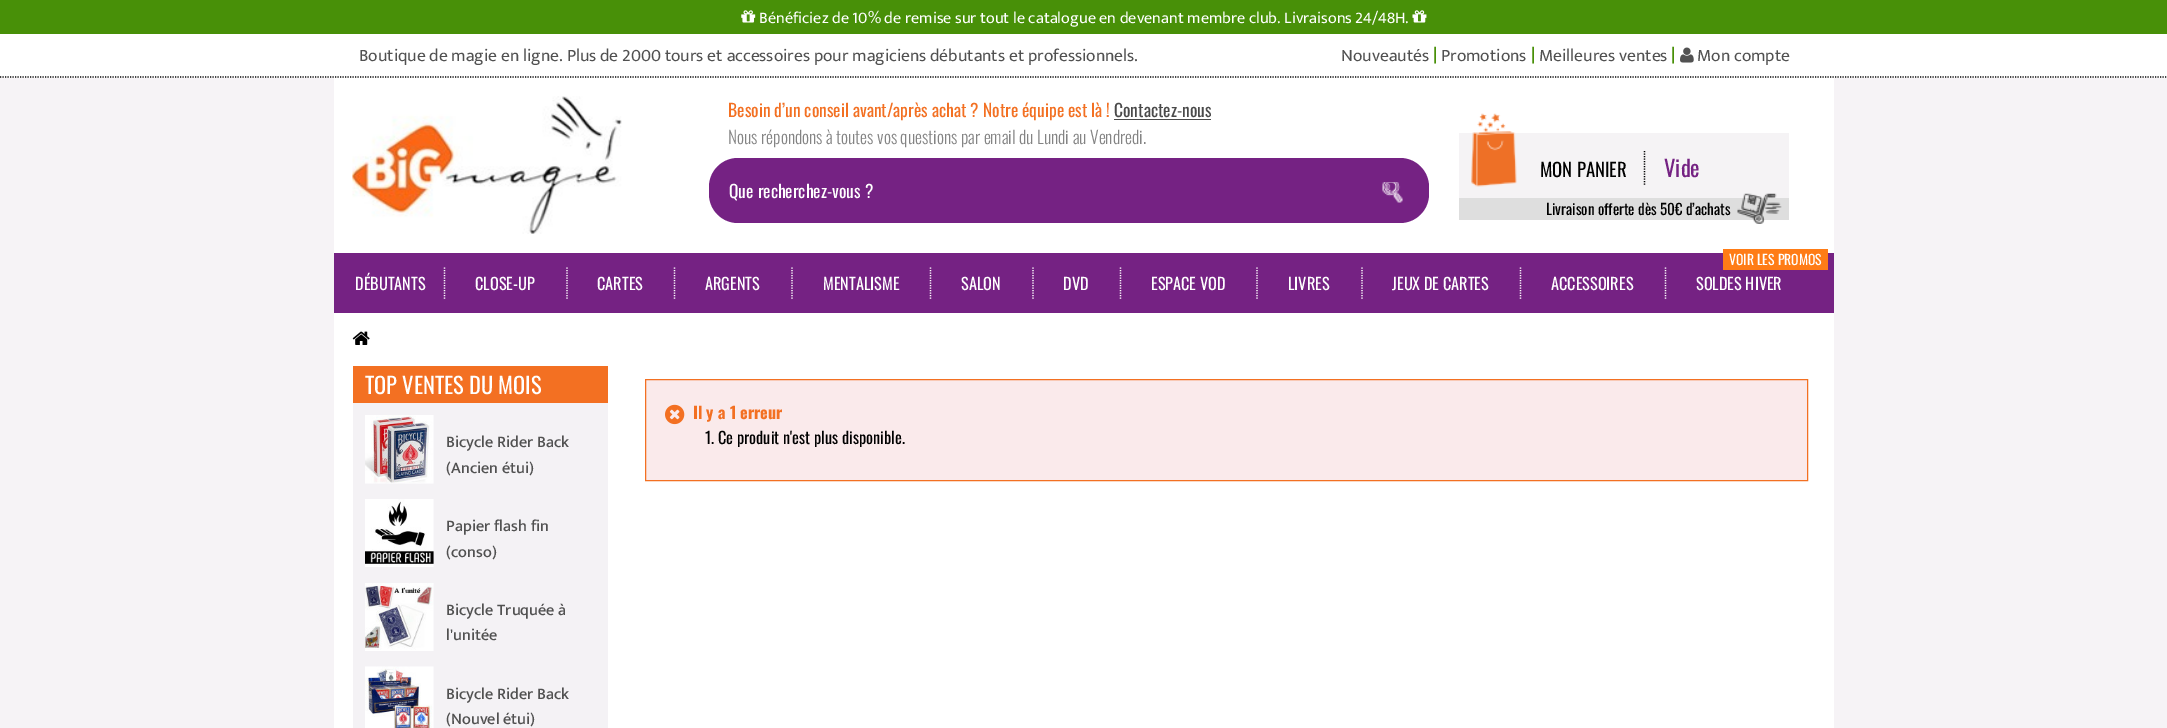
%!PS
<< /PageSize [2167 728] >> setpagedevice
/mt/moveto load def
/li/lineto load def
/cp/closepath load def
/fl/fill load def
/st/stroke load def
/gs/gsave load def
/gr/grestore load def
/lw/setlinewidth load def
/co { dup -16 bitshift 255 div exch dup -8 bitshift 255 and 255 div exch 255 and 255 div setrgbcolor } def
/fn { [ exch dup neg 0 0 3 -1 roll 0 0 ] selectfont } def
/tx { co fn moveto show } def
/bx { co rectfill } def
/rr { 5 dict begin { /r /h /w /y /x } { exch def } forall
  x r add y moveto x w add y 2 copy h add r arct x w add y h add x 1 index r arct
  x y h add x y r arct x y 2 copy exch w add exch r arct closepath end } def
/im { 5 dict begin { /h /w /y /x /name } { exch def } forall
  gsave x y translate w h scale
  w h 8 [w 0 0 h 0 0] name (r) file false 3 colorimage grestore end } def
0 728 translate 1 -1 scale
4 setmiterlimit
0 0 2167 728 16#F6F3F6 bx
0 0 2167 34 16#489008 bx
(media/1.raw) 741 10 15 13 im
(media/2.raw) 1412 10 15 13 im
0 34 2167 44 16#FFFFFF bx
16#000000 co
1.2 lw
[1.25 1.25] 0 setdash
0 77 mt 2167.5 77 li st
(media/3.raw) 1680 47 14 16 im
334 78 1500 175 16#FFFFFF bx
(media/4.raw) 352 96 270 138 im
1114 119 97 1 16#4A4A4A bx
16#752283 co
709 158 720 65 29 rr fl
(media/5.raw) 1382 182 21 21 im
1459 133 330 65 16#F5F3F5 bx
(media/6.raw) 1471 113 46 74 im
16#000000 co
1644.5 151 mt 1644.5 186 li st
1459 198 330 22 16#DEDEDE bx
(media/7.raw) 1737 193 45 31 im
334 253 1500 60 16#752283 bx
16#FFFFFF co
444.5 267.5 mt 444.5 299 li st
567 267.5 mt 567 299 li st
674.5 267.5 mt 674.5 299 li st
792 267.5 mt 792 299 li st
930.5 267.5 mt 930.5 299 li st
1033 267.5 mt 1033 299 li st
1120.5 267.5 mt 1120.5 299 li st
1257 267.5 mt 1257 299 li st
1362 267.5 mt 1362 299 li st
1520.5 267.5 mt 1520.5 299 li st
1665.5 267.5 mt 1665.5 299 li st
1723 249 105 21 16#FF7C16 bx
334 313 1500 415 16#FFFFFF bx
(media/8.raw) 352 331 18 14 im
353 366 255 37 16#F37022 bx
353 403 255 325 16#F4F2F5 bx
(media/9.raw) 365 415 69 69 im
(media/10.raw) 365 499 69 68 im
(media/11.raw) 365 583 69 68 im
(media/12.raw) 365 666 69 62 im
16#FAEAEB co
645.5 379.5 mt 1807.5 379.5 li 1807.5 480.5 li 645.5 480.5 li cp gs fl gr
16#F37022 co
1 lw
[] 0 setdash
st
(media/13.raw) 665 404 20 21 im
(Bénéficiez de 10% de remise sur tout le catalogue en devenant membre club. Livraisons 24/48H.) 759 23 /EkMukta-Regular 16.25 16#FFFFFF tx
(Boutique de magie en ligne. Plus de 2000 tours et accessoires pour magiciens débutants et professionnels.) 359 61 /EkMukta-Regular 17.5 16#515151 tx
(Nouveautés) 1341 61 /EkMukta-Regular 17.5 16#515151 tx
(|) 1433 61 /Oswald-Regular 17.5 16#489008 tx
(Promotions) 1441 61 /EkMukta-Regular 17.5 16#515151 tx
(|) 1531 61 /Oswald-Regular 17.5 16#489008 tx
(Meilleures ventes) 1539 61 /EkMukta-Regular 17.5 16#515151 tx
(|) 1671 61 /Oswald-Regular 17.5 16#489008 tx
(Mon compte) 1697 61 /EkMukta-Regular 17.5 16#515151 tx
(Besoin d’un conseil avant/après achat ? Notre équipe est là !) 728 117 /Oswald-Regular 17.5 16#F37022 tx
(Contactez-nous) 1114 117 /Oswald-Regular 17.5 16#4A4A4A tx
(Nous répondons à toutes vos questions par email du Lundi au Vendredi.) 728 144 /Oswald-Light 17.5 16#848484 tx
(Que recherchez-vous ?) 729 198 /Oswald-Regular 17.5 16#FFFFFF tx
(MON PANIER) 1540 177 /Oswald-Regular 18.75 16#000000 tx
(Vide) 1664 177 /Oswald-Regular 22.5 16#752283 tx
(Livraison offerte dès 50€ d’achats) 1546 215 /Oswald-Regular 15 16#000000 tx
(DÉBUTANTS) 355 290 /Oswald-Regular 16.25 16#FFFFFF tx
(CLOSE-UP) 475 290 /Oswald-Regular 16.25 16#FFFFFF tx
(CARTES) 597 290 /Oswald-Regular 16.25 16#FFFFFF tx
(ARGENTS) 705 290 /Oswald-Regular 16.25 16#FFFFFF tx
(MENTALISME) 823 290 /Oswald-Regular 16.25 16#FFFFFF tx
(SALON) 961 290 /Oswald-Regular 16.25 16#FFFFFF tx
(DVD) 1063 290 /Oswald-Regular 16.25 16#FFFFFF tx
(ESPACE VOD) 1151 290 /Oswald-Regular 16.25 16#FFFFFF tx
(LIVRES) 1288 290 /Oswald-Regular 16.25 16#FFFFFF tx
(JEUX DE CARTES) 1392 290 /Oswald-Regular 16.25 16#FFFFFF tx
(ACCESSOIRES) 1551 290 /Oswald-Regular 16.25 16#FFFFFF tx
(VOIR LES PROMOS) 1729 265 /Oswald-Regular 13.75 16#FFFFFF tx
(SOLDES HIVER) 1696 290 /Oswald-Regular 16.25 16#FFFFFF tx
(TOP VENTES DU MOIS) 365 394 /Oswald-Regular 22.5 16#FFFFFF tx
(Bicycle Rider Back) 446 447 /EkMukta-Medium 16.25 16#515151 tx
(\(Ancien étui\)) 446 473 /EkMukta-Medium 16.25 16#515151 tx
(Papier flash fin) 446 531 /EkMukta-Medium 16.25 16#515151 tx
(\(conso\)) 446 557 /EkMukta-Medium 16.25 16#515151 tx
(Bicycle Truquée à) 446 615 /EkMukta-Medium 16.25 16#515151 tx
(l'unitée) 446 640 /EkMukta-Medium 16.25 16#515151 tx
(Bicycle Rider Back) 446 699 /EkMukta-Medium 16.25 16#515151 tx
(\(Nouvel étui\)) 446 724 /EkMukta-Medium 16.25 16#515151 tx
(Il y a 1 erreur) 693 419 /Oswald-Bold 16.25 16#F37022 tx
(1. Ce produit n'est plus disponible.) 705 444 /Oswald-Regular 16.25 16#000000 tx
showpage
